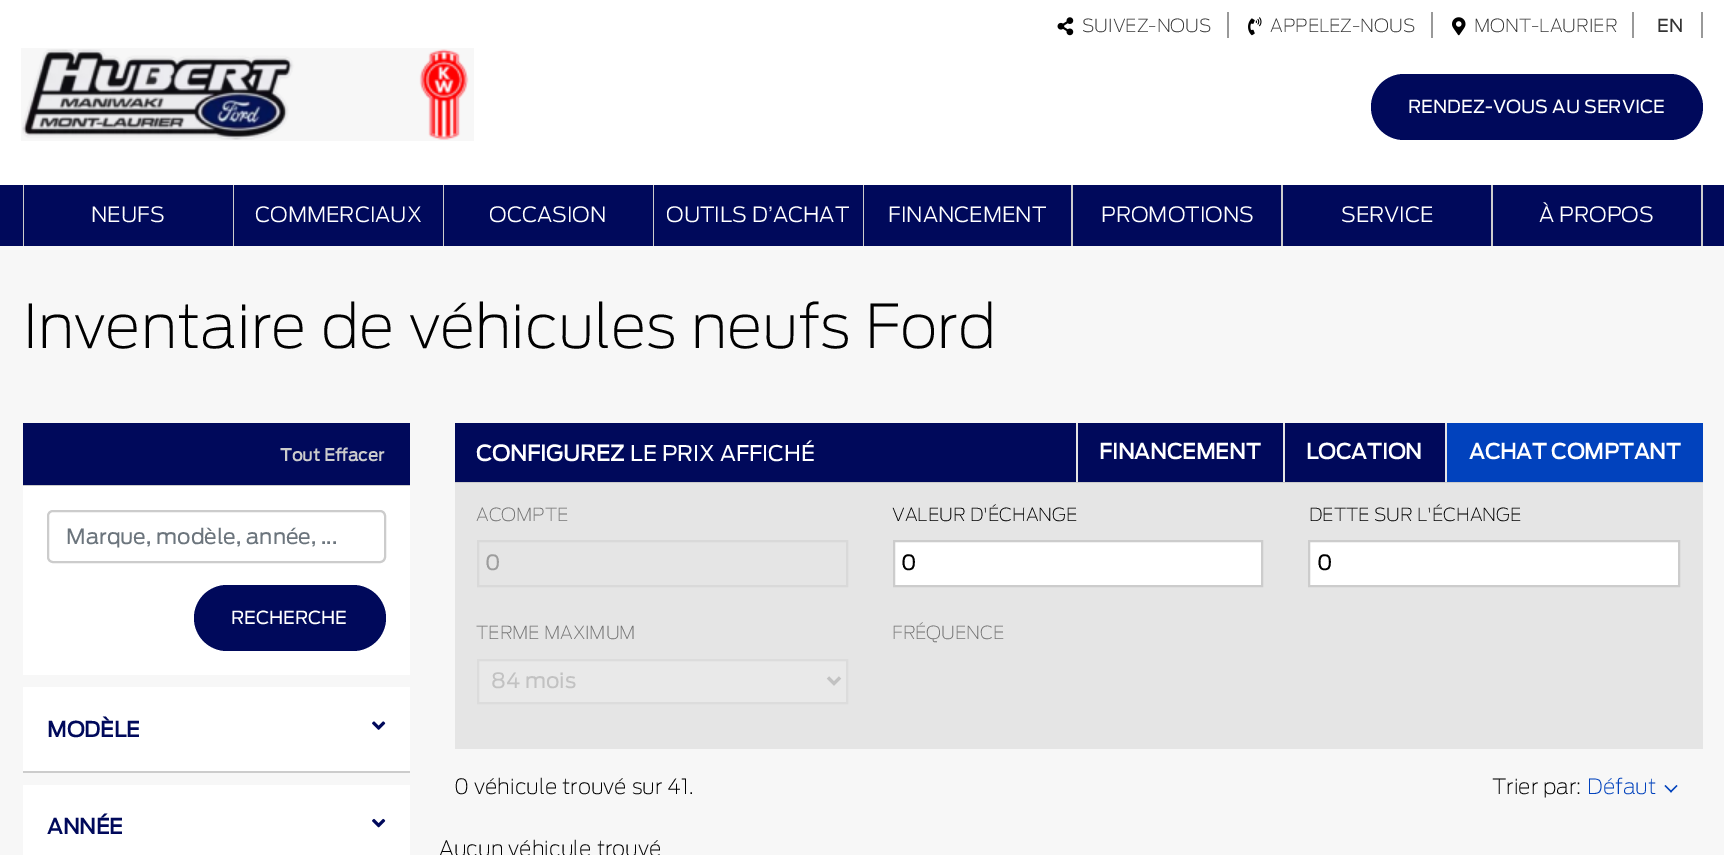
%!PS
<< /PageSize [1724 855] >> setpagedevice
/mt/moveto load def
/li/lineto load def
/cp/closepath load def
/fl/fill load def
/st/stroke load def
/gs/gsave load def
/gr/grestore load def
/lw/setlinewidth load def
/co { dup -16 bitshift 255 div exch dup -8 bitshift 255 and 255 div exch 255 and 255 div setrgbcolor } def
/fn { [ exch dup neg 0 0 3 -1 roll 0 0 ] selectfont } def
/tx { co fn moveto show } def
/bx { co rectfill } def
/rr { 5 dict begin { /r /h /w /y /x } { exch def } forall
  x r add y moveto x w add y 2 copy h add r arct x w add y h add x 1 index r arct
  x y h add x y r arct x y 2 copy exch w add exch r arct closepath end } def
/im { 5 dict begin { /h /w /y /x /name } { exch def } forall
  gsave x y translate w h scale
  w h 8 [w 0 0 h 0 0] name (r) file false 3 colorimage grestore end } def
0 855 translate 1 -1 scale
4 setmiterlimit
0 0 1724 855 16#F7F7F7 bx
0 0 1724 185 16#FFFFFF bx
1227 12 2 26 16#999999 bx
(media/1.raw) 1057 17 17 19 im
1431 12 2 26 16#999999 bx
(media/2.raw) 1248 17 14 19 im
1632 12 2 26 16#999999 bx
(media/3.raw) 1452 17 14 19 im
1701 12 2 26 16#999999 bx
(media/4.raw) 21 48 453 93 im
16#00095B co
1371 74 332 66 33 rr fl
0 185 1724 61 16#00095B bx
23 185 1 61 16#CCCCCC bx
233 185 1 61 16#CCCCCC bx
443 185 1 61 16#CCCCCC bx
653 185 1 61 16#CCCCCC bx
863 185 1 61 16#CCCCCC bx
1071 185 2 61 16#CCCCCC bx
1281 185 2 61 16#CCCCCC bx
1701 185 2 61 16#CCCCCC bx
1491 185 2 61 16#CCCCCC bx
23 423 387 62 16#00095B bx
23 485 387 1 16#CCCCCC bx
23 486 387 189 16#FFFFFF bx
16#CCCCCC co
2 lw
48 511 337 51 5 rr st
16#00095B co
194 585 192 66 33 rr fl
23 687 387 84 16#FFFFFF bx
23 771 387 2 16#CCCCCC bx
(media/5.raw) 372 721 14 9 im
23 785 387 70 16#FFFFFF bx
(media/6.raw) 372 818 14 10 im
455 423 990 59 16#00095B bx
1076 423 2 59 16#E5E5E5 bx
1283 423 2 59 16#E5E5E5 bx
1447 423 256 59 16#0142BD bx
1445 423 2 59 16#E5E5E5 bx
455 482 1248 1 16#CCCCCC bx
455 483 1248 266 16#E5E5E5 bx
16#D9D9D9 co
478 541 369 45 rectstroke
16#FFFFFF co
894 541 mt 1262 541 li 1262 586 li 894 586 li cp gs fl gr
16#CCCCCC co
st
16#FFFFFF co
1309 541 mt 1679 541 li 1679 586 li 1309 586 li cp gs fl gr
16#CCCCCC co
st
16#E9E9E9 co
478 660 mt 847 660 li 847 703 li 478 703 li cp gs fl gr
16#DCDCDC co
st
16#C2C2C2 co
3 lw
828 677.5 mt 834 683.5 li 840 677.5 li st
16#0142BD co
1677.5 786 mt 1671 792.5 li 1670 791.5 li 1676.5 785 li cp fl
1672 791.5 mt 1671 792.5 li 1664.5 786 li 1665.5 785 li cp fl
(SUIVEZ-NOUS) 1082 32 /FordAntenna-ExtraLight 18 16#333333 tx
(APPELEZ-NOUS) 1270 32 /FordAntenna-ExtraLight 18 16#333333 tx
(MONT-LAURIER) 1474 32 /FordAntenna-ExtraLight 18 16#333333 tx
(EN) 1657 32 /FordAntenna-Regular 18 16#333333 tx
(RENDEZ-VOUS AU SERVICE) 1408 113 /FordAntenna-Regular 18 16#FFFFFF tx
(NEUFS) 91 222 /FordAntenna-Light 21 16#FFFFFF tx
(COMMERCIAUX) 255 222 /FordAntenna-Light 21 16#FFFFFF tx
(OCCASION) 489 222 /FordAntenna-Light 21 16#FFFFFF tx
(OUTILS D’ACHAT) 666 222 /FordAntenna-Light 21 16#FFFFFF tx
(FINANCEMENT) 888 222 /FordAntenna-Light 21 16#FFFFFF tx
(PROMOTIONS) 1101 222 /FordAntenna-Light 21 16#FFFFFF tx
(SERVICE) 1341 222 /FordAntenna-Light 21 16#FFFFFF tx
(À PROPOS) 1539 222 /FordAntenna-Light 21 16#FFFFFF tx
(Inventaire de véhicules neufs Ford) 23 348 /FordAntenna-ExtraLight 60 16#000000 tx
(Tout Effacer) 280 461 /FordAntenna-Bold 16.75 16#CCCCCC tx
(Marque, modèle, année, ...) 66 544 /FordAntenna-Regular 21 16#6C757D tx
(RECHERCHE) 231 624 /FordAntenna-Regular 18 16#FFFFFF tx
(MODÈLE) 47 737 /FordAntenna-Bold 21 16#00095B tx
(ANNÉE) 47 834 /FordAntenna-Bold 21 16#00095B tx
(CONFIGUREZ) 476 461 /FordAntenna-Bold 21.5 16#FFFFFF tx
(LE PRIX AFFICHÉ) 630 461 /FordAntenna-Regular 21.5 16#FFFFFF tx
(FINANCEMENT) 1099 459 /FordAntenna-Bold 21 16#FFFFFF tx
(LOCATION) 1306 459 /FordAntenna-Bold 21 16#FFFFFF tx
(ACHAT COMPTANT) 1469 459 /FordAntenna-Bold 21 16#FFFFFF tx
(ACOMPTE) 476 521 /FordAntenna-ExtraLight 18 16#737373 tx
(0) 485 570 /FordAntenna-Regular 21 16#9D9D9D tx
(VALEUR D'ÉCHANGE) 892 521 /FordAntenna-ExtraLight 18 16#000000 tx
(0) 901 570 /FordAntenna-Regular 21 16#000000 tx
(DETTE SUR L'ÉCHANGE) 1309 521 /FordAntenna-ExtraLight 18 16#000000 tx
(0) 1317 570 /FordAntenna-Regular 21 16#000000 tx
(TERME MAXIMUM) 476 639 /FordAntenna-ExtraLight 18 16#737373 tx
(84 mois) 491 688 /FordAntenna-Regular 21 16#C2C2C2 tx
(FRÉQUENCE) 892 639 /FordAntenna-ExtraLight 18 16#737373 tx
(0 véhicule trouvé sur 41.) 454 794 /FordAntenna-ExtraLight 21 16#000000 tx
(Trier par:) 1492 794 /FordAntenna-ExtraLight 21 16#000000 tx
(Défaut) 1587 794 /FordAntenna-ExtraLight 21 16#0142BD tx
(Aucun véhicule trouvé) 439 856 /FordAntenna-ExtraLight 21 16#000000 tx
showpage
